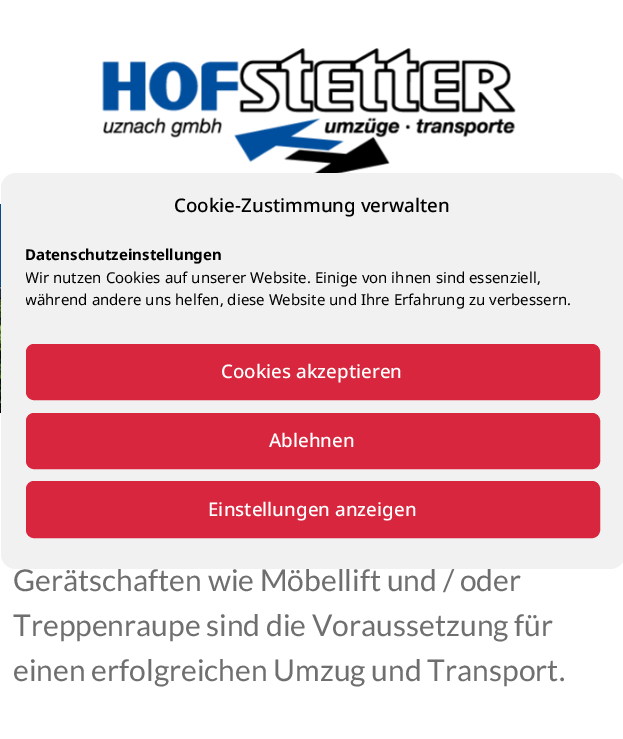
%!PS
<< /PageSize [623 739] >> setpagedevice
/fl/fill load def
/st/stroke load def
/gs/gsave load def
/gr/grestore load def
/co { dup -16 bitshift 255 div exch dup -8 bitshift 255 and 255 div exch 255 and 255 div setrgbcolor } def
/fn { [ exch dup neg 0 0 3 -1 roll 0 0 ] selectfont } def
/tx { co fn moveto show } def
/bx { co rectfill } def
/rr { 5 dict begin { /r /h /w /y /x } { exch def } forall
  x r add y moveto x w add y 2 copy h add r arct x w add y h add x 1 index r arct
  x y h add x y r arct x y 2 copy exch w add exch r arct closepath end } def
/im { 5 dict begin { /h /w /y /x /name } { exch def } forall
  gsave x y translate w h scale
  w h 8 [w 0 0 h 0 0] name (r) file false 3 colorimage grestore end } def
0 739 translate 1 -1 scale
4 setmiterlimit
0 0 623 739 16#FFFFFF bx
(media/1.raw) 102 48 414 125 im
0 204 1 82 16#084B8A bx
(media/2.raw) 0 286 1 127 im
(Gerätschaften wie Möbellift und / oder) 13 591 /Lato-Regular 30 16#6F6F6F tx
16#F1F1F1 co
1 173 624 396 15 rr fl
gs
26 245 574 74 rectclip
(während andere uns helfen, diese Website und Ihre Erfahrung zu verbessern.) 25 305 /NotoSans-Regular 15 16#000000 tx
(Wir nutzen Cookies auf unserer Website. Einige von ihnen sind essenziell,) 25 283 /NotoSans-Regular 15 16#000000 tx
gr
(Datenschutzeinstellungen) 25 260 /NotoSans-Bold 15 16#000000 tx
16#D7263D co
26.5 481.5 573 56 7.5 rr gs fl gr
st
(Einstellungen anzeigen) 208 516 /NotoSans-Medium 18.75 16#FFFFFF tx
16#D7263D co
26.5 413.5 573 55 7.5 rr gs fl gr
st
(Ablehnen) 269 447 /NotoSans-Medium 18.75 16#FFFFFF tx
16#D7263D co
26.5 344.5 573 55 7.5 rr gs fl gr
st
(Cookies akzeptieren) 221 378 /NotoSans-Medium 18.75 16#FFFFFF tx
(Cookie-Zustimmung verwalten) 174 212 /NotoSans-Medium 18.75 16#000000 tx
(Treppenraupe sind die Voraussetzung für) 13 636 /Lato-Regular 30 16#6F6F6F tx
(einen erfolgreichen Umzug und Transport.) 13 681 /Lato-Regular 30 16#6F6F6F tx
showpage
